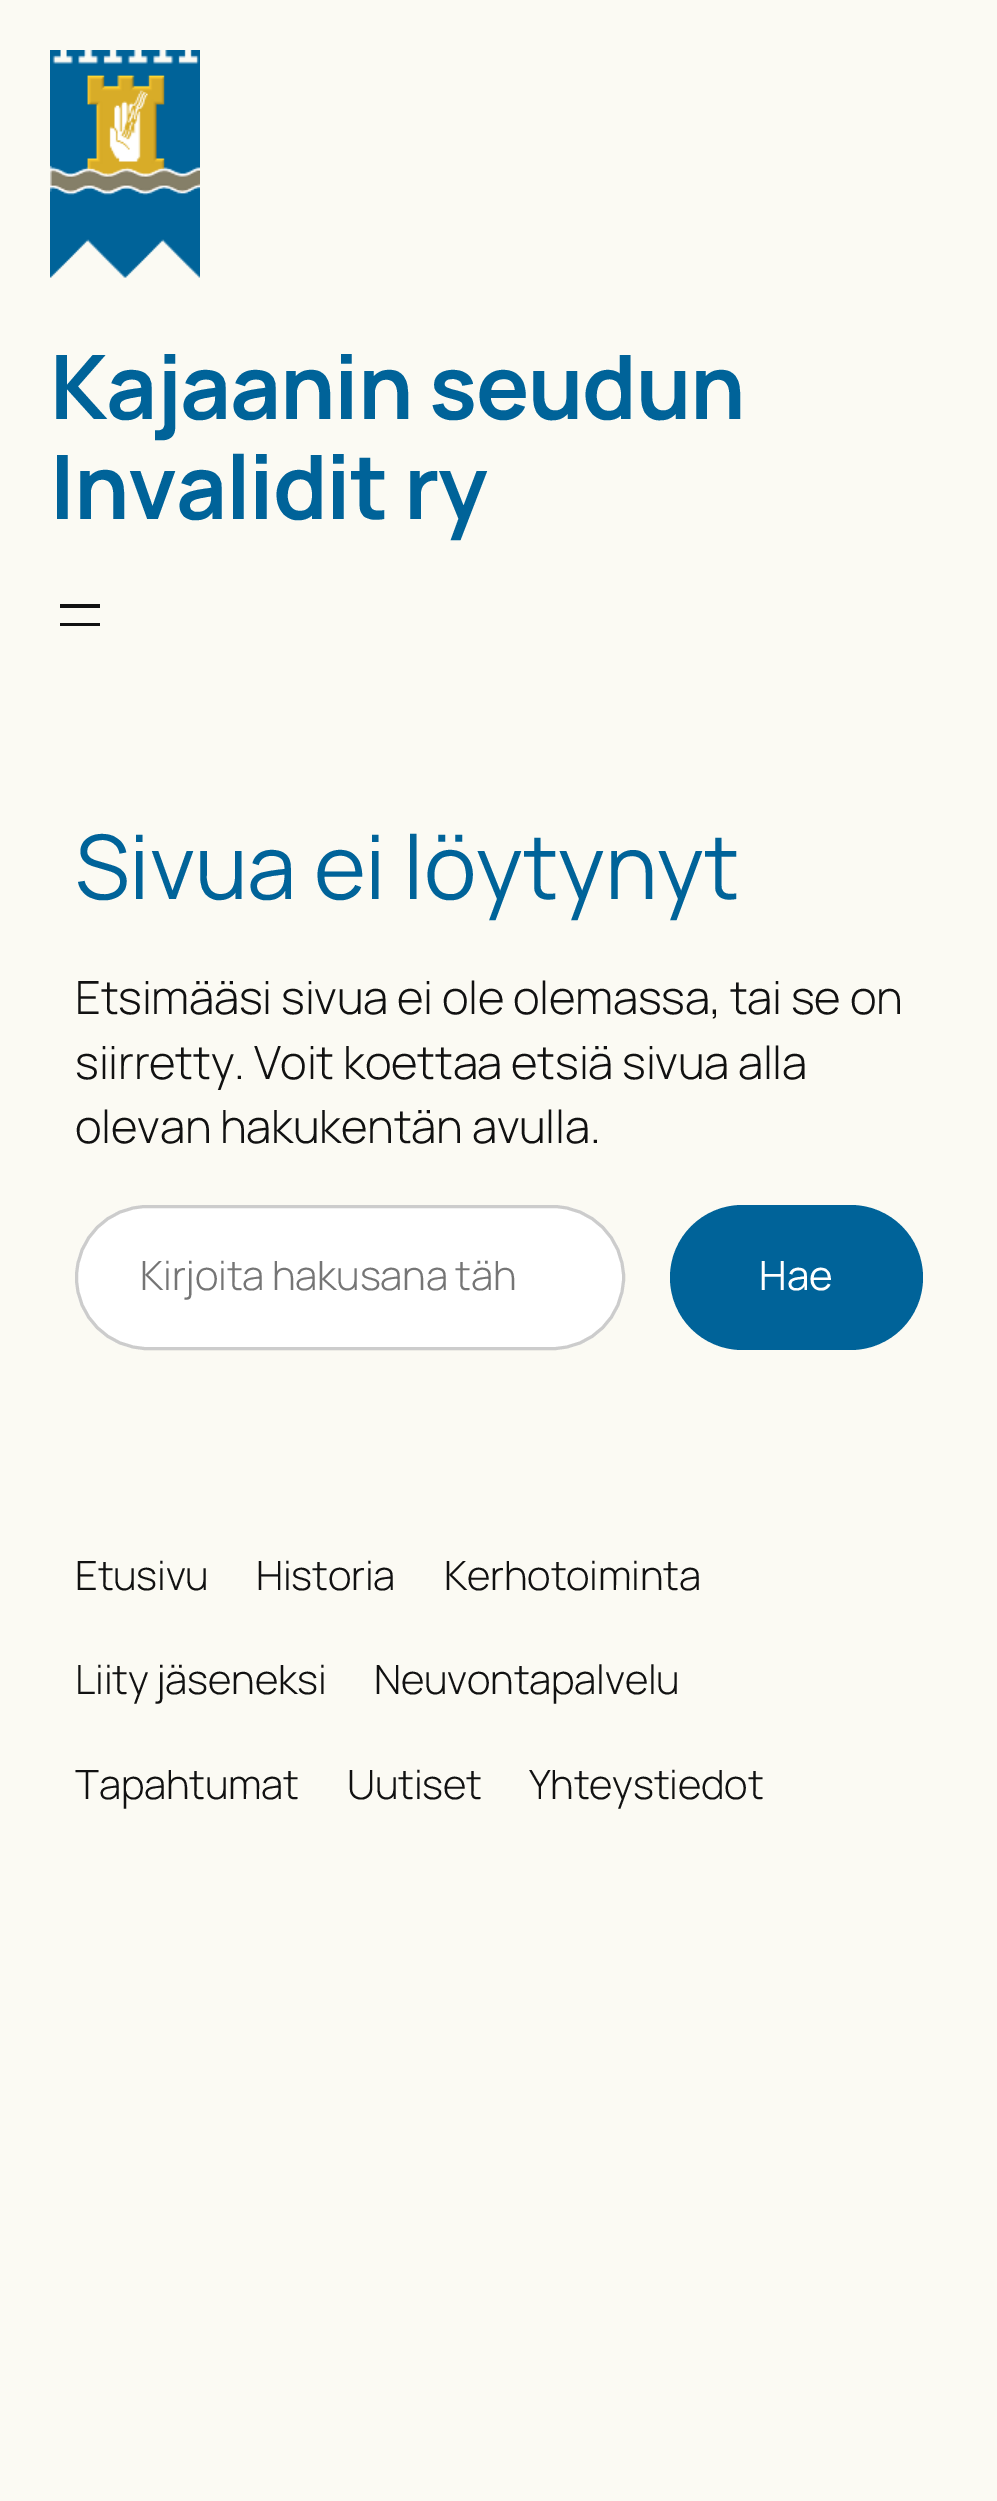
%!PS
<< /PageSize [997 2501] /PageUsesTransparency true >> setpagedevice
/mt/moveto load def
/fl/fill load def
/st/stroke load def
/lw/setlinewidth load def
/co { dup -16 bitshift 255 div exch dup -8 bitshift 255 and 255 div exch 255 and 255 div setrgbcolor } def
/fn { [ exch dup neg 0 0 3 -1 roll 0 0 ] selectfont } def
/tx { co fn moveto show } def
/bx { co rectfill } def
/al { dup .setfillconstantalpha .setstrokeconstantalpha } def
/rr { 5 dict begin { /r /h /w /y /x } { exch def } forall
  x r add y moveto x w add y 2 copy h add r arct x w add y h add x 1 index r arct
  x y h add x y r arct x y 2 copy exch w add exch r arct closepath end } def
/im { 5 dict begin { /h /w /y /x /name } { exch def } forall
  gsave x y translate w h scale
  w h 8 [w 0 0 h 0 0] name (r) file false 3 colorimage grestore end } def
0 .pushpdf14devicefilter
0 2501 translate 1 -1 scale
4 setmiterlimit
0 0 997 2501 16#FBFAF3 bx
(media/1.raw) 50 50 150 228 im
60 604 40 4 16#111111 bx
60 623 40 3 16#111111 bx
16#FFFFFF co
75 1205 550 145 72.5 rr fl
0.2 al
16#000000 co
3 lw
76.5 1206.5 547 142 71 rr st
1 al
16#006399 co
670 1205 253 145 72.5 rr fl
/Manrope-Bold 88.75 fn
50 419 mt -1.25 0 (Kajaanin seudun) ashow
50 519 mt -1.25 0 (Invalidit ry) ashow
/Manrope-Regular 88.75 fn
75 899 mt -.25 0 (Sivua ei löytynyt) ashow
/Manrope-Light 45.75 fn
16#111111 co
75 1014 mt -.25 0 (Etsimääsi sivua ei ole olemassa, tai se on) ashow
75 1079 mt -.25 0 (siirretty. Voit koettaa etsiä sivua alla) ashow
75 1143 mt -.25 0 (olevan hakukentän avulla.) ashow
/Manrope-Light 40.4 fn
16#757575 co
140 1290 mt -.25 0 (Kirjoita hakusana täh) ashow
(Hae) 759 1290 /Manrope-Regular 40.4 16#FFFFFF tx
/Manrope-Light 40.4 fn
16#111111 co
75 1590 mt -.25 0 (Etusivu) ashow
256 1590 mt -.25 0 (Historia) ashow
444 1590 mt -.25 0 (Kerhotoiminta) ashow
75 1694 mt -.25 0 (Liity jäseneksi) ashow
374 1694 mt -.25 0 (Neuvontapalvelu) ashow
75 1799 mt -.25 0 (Tapahtumat) ashow
347 1799 mt -.25 0 (Uutiset) ashow
529 1799 mt -.25 0 (Yhteystiedot) ashow
.poppdf14devicefilter showpage
